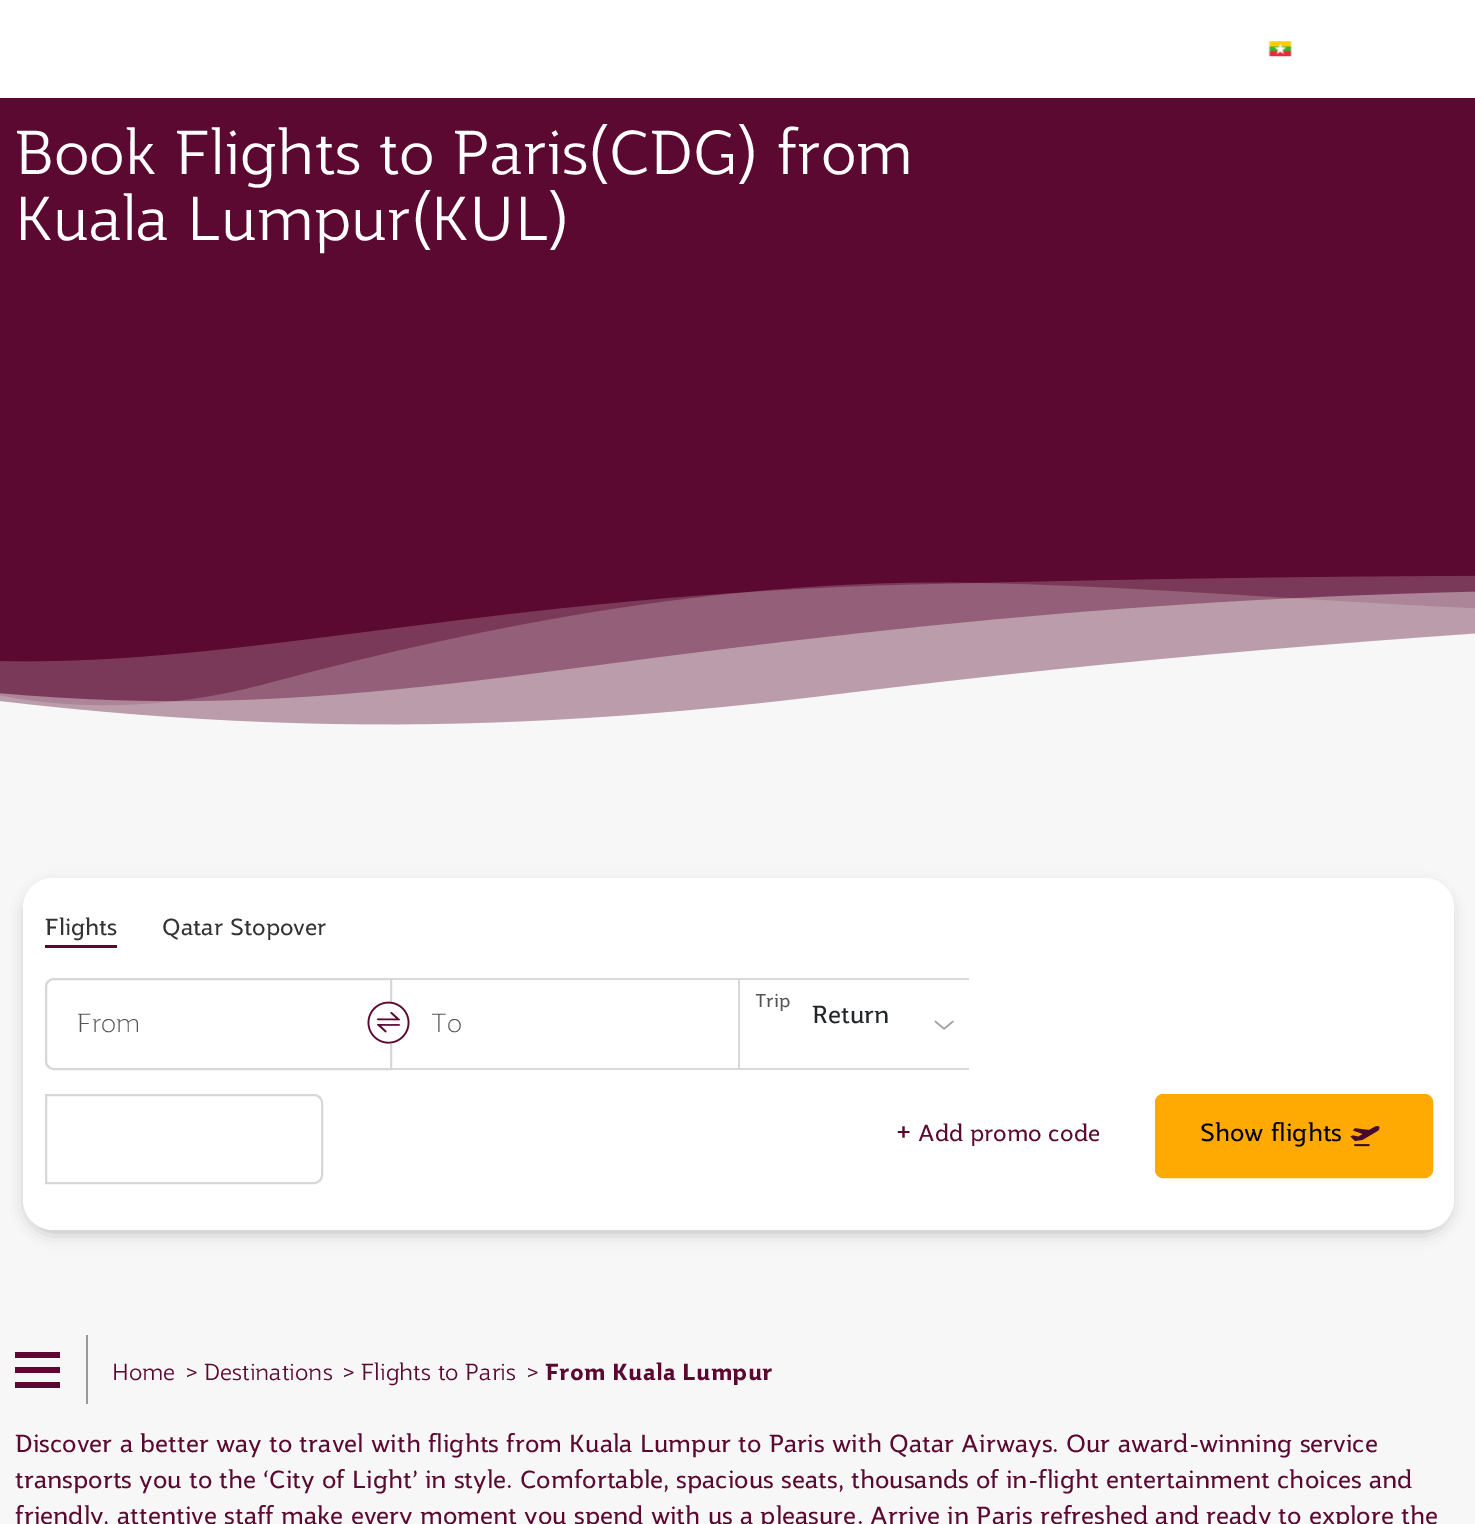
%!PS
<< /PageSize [1475 1524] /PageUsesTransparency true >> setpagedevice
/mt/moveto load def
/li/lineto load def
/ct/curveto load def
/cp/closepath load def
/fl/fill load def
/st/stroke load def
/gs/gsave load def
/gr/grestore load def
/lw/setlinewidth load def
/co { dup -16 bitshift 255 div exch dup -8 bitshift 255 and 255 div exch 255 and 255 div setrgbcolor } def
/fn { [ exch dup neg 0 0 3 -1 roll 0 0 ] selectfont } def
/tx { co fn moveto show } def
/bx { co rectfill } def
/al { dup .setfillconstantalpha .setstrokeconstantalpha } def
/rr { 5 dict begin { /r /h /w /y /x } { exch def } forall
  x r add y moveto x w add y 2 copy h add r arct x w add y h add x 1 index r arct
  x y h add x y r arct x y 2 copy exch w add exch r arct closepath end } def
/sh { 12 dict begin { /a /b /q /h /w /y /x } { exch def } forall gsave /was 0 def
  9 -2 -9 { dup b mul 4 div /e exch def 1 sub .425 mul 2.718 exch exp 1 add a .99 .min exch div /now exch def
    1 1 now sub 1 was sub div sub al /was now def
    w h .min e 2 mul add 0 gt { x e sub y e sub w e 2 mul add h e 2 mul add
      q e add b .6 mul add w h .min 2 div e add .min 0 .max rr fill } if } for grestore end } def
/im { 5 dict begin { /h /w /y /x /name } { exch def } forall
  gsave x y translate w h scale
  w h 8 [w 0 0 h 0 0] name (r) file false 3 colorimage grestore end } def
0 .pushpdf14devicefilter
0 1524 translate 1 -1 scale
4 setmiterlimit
0 0 1475 1524 16#F7F7F7 bx
0 0 1475 98 16#FFFFFF bx
(media/1.raw) 1268 41 24 16 im
0 98 1475 627 16#5C0931 bx
(media/2.raw) 0 575 1475 153 im
16#000000 co
27 888 1422 344 26 8 .25 sh
16#FFFFFF co
23 878 1431 352 30 rr fl
45 945 72 3 16#5C0931 bx
16#D7D7D7 co
2 lw
54 979 mt 391 979 li 391 1069 li 54 1069 li 49.5 1069 46 1065.5 46 1061 ct 46 987 li 46 982.5 49.5 979 54 979 ct cp st
390 1002 2 42 16#FFFFFF bx
(media/3.raw) 367 1001 43 43 im
392 978 577 2 16#D7D7D7 bx
392 1068 577 2 16#D7D7D7 bx
738 978 2 92 16#D7D7D7 bx
(media/4.raw) 934 1020 20 10 im
46 1095 mt 314 1095 li 318.5 1095 322 1098.5 322 1103 ct 322 1175 li 322 1179.5 318.5 1183 314 1183 ct 46 1183 li cp st
16#FFA903 co
1156.5 1095.5 275 81 6.5 rr gs fl gr
3 lw
st
(media/5.raw) 1350 1126 30 21 im
86 1335 2 69 16#999999 bx
15 1352 45 6 16#5C0931 bx
15 1367 45 6 16#5C0931 bx
15 1382 45 6 16#5C0931 bx
(Book Flights to Paris\(CDG\) from) 15 174 /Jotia-Light 60 16#FFFFFF tx
(Kuala Lumpur\(KUL\)) 15 240 /Jotia-Light 60 16#FFFFFF tx
(Flights) 45 935 /Jotia-Regular 22.5 16#333333 tx
(Qatar Stopover) 162 935 /Jotia-Regular 22.5 16#333333 tx
(From) 77 1032 /Jotia-Thin 25.5 16#555555 tx
(To) 431 1032 /Jotia-Thin 25.5 16#555555 tx
(Trip) 755 1007 /Jotia-Regular 18 16#555555 tx
(Return) 812 1023 /Jotia-Regular 24 16#212529 tx
(+) 896 1141 /Jotia-Regular 28 16#5C0931 tx
(Add promo code) 918 1141 /Jotia-Regular 22.5 16#5C0931 tx
(Show flights) 1200 1141 /Jotia-Regular 24 16#000000 tx
(Home) 112 1380 /Jotia-Light 22.5 16#5C0931 tx
(>) 185 1380 /Jotia-Light 22.5 16#5C0931 tx
(Destinations) 204 1380 /Jotia-Light 22.5 16#5C0931 tx
(>) 342 1380 /Jotia-Light 22.5 16#5C0931 tx
(Flights to Paris) 361 1380 /Jotia-Light 22.5 16#5C0931 tx
(>) 526 1380 /Jotia-Light 22.5 16#5C0931 tx
(From Kuala Lumpur) 545 1380 /Jotia-Bold 22.5 16#5C0931 tx
(Discover a better way to travel with flights from Kuala Lumpur to Paris with Qatar Airways. Our award-winning service) 15 1452 /Jotia-Regular 24 16#5C0931 tx
(transports you to the ‘City of Light’ in style. Comfortable, spacious seats, thousands of in-flight entertainment choices and) 15 1488 /Jotia-Regular 24 16#5C0931 tx
(friendly, attentive staff make every moment you spend with us a pleasure. Arrive in Paris refreshed and ready to explore the) 15 1524 /Jotia-Regular 24 16#5C0931 tx
.poppdf14devicefilter showpage
